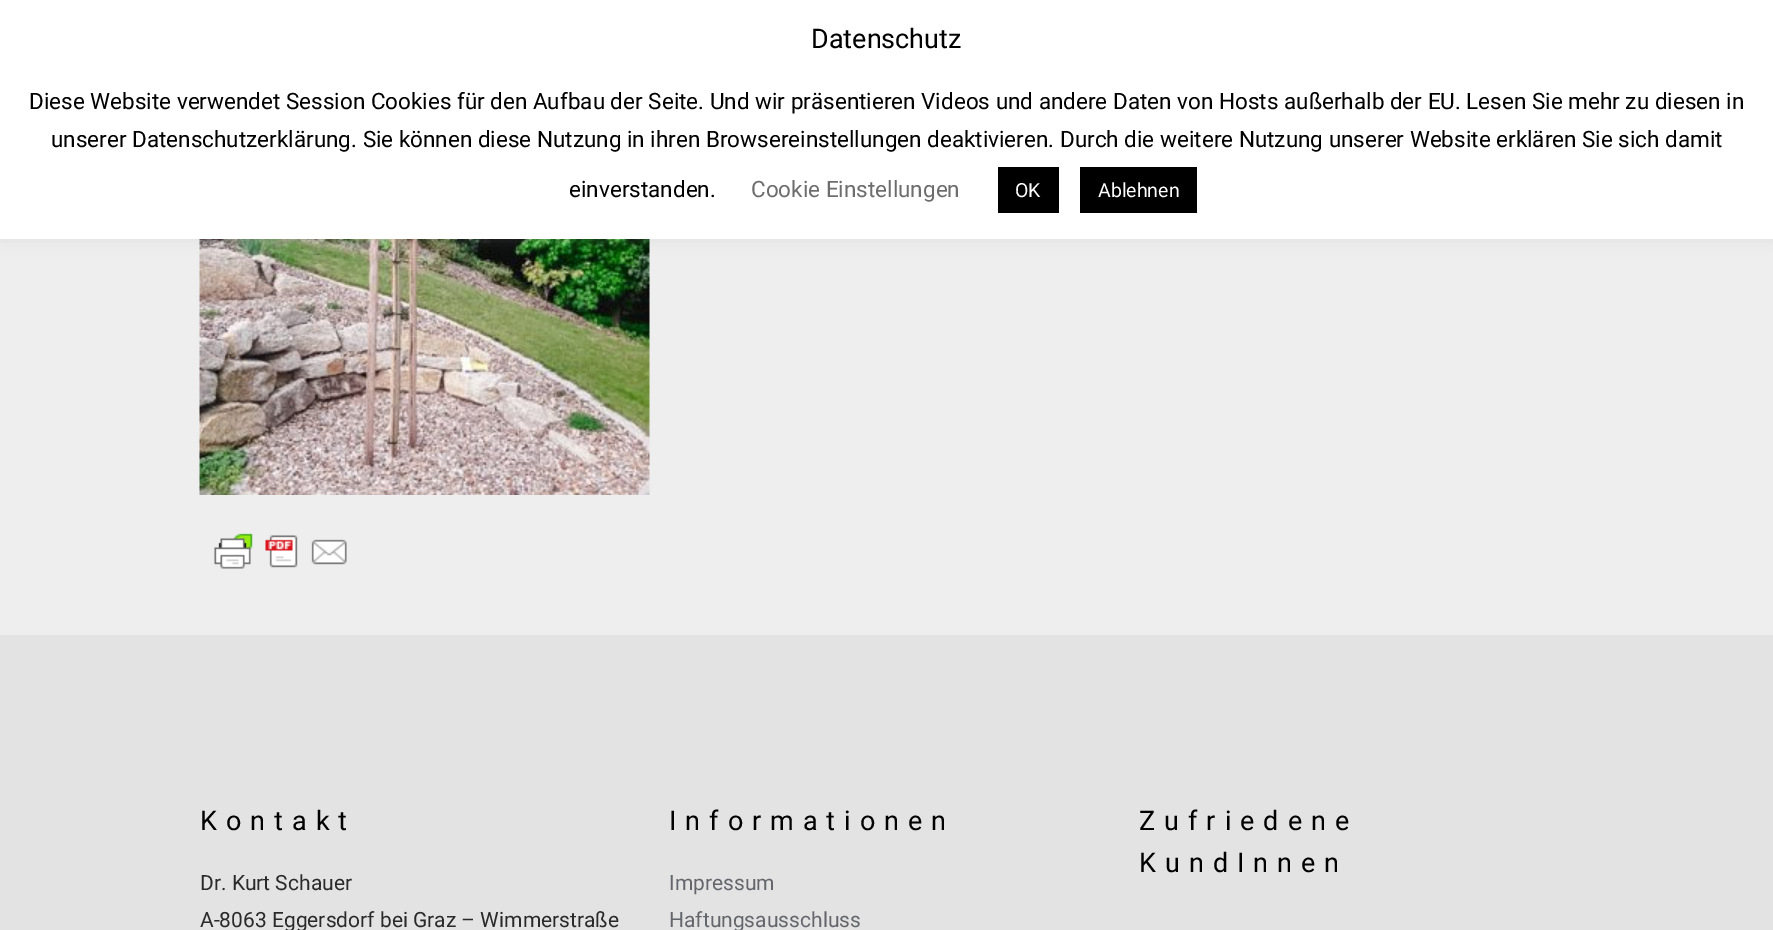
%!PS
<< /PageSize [1773 930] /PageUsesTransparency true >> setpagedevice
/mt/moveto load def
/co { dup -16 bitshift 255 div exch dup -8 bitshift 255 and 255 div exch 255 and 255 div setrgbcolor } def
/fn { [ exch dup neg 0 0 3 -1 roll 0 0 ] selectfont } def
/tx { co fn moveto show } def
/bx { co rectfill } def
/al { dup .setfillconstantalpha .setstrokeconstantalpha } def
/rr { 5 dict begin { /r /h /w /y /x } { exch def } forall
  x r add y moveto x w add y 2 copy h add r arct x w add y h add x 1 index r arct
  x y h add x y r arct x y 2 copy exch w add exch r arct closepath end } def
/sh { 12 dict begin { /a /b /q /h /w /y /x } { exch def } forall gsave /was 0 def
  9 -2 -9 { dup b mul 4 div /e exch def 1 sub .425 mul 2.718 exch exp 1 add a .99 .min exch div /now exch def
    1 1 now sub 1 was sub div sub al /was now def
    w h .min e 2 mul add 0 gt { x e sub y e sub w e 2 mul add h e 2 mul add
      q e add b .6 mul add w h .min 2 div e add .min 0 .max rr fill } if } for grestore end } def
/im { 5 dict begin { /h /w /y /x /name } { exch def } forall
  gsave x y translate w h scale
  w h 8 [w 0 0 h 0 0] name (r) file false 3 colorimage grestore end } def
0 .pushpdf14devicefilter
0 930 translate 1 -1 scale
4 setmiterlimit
0 0 1773 930 16#EEEEEE bx
(media/1.raw) 199 239 451 256 im
16#ACABAB co
0 -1 1773 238 0 7.5 .3 sh
0 0 1773 239 16#FFFFFF bx
998 167 61 46 16#000000 bx
1080 167 117 46 16#000000 bx
(media/2.raw) 214 533 133 36 im
0 635 1773 295 16#E3E3E3 bx
(Datenschutz) 811 48 /Roboto-Regular 27 16#000000 tx
(Diese Website verwendet Session Cookies für den Aufbau der Seite. Und wir präsentieren Videos und andere Daten von Hosts außerhalb der EU. Lesen Sie mehr zu diesen in) 29 109 /Roboto-Regular 22.5 16#000000 tx
(unserer Datenschutzerklärung. Sie können diese Nutzung in ihren Browsereinstellungen deaktivieren. Durch die weitere Nutzung unserer Website erklären Sie sich damit) 51 147 /Roboto-Regular 22.5 16#000000 tx
(einverstanden.) 569 197 /Roboto-Regular 22.5 16#000000 tx
(Cookie Einstellungen) 751 197 /Roboto-Regular 22.5 16#6D6D6D tx
(OK) 1015 197 /Roboto-Regular 19.5 16#FFFFFF tx
(Ablehnen) 1098 197 /Roboto-Regular 19.5 16#FFFFFF tx
/Roboto-Regular 27 fn
16#000000 co
200 830 mt 9 0 (Kontakt) ashow
(Dr. Kurt Schauer) 200 890 /Roboto-Regular 21 16#2A2A2A tx
(A-8063 Eggersdorf bei Graz – Wimmerstraße) 200 927 /Roboto-Regular 21 16#2A2A2A tx
/Roboto-Regular 27 fn
16#000000 co
669 830 mt 9 0 (Informationen) ashow
(Impressum) 669 890 /Roboto-Regular 21 16#65666C tx
(Haftungsausschluss) 669 927 /Roboto-Regular 21 16#65666C tx
/Roboto-Regular 27 fn
16#000000 co
1139 830 mt 9 0 (Zufriedene) ashow
1139 872 mt 9 0 (KundInnen) ashow
.poppdf14devicefilter showpage
